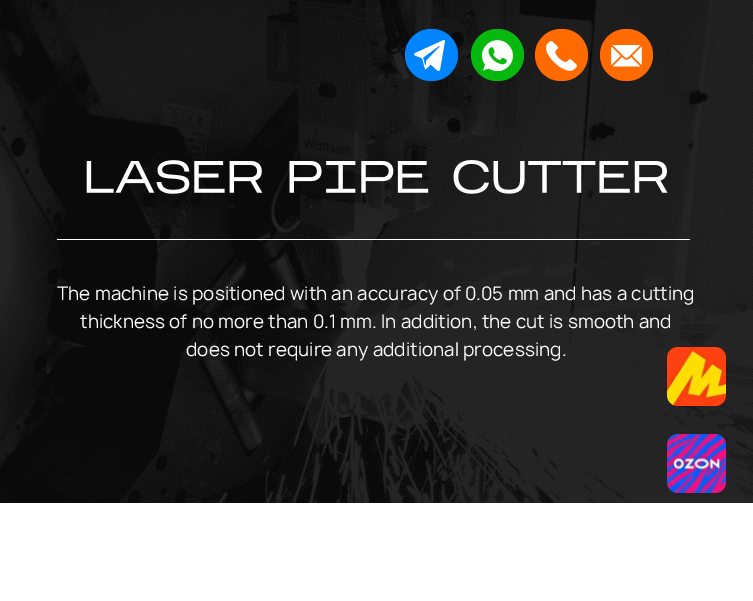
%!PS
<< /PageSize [753 601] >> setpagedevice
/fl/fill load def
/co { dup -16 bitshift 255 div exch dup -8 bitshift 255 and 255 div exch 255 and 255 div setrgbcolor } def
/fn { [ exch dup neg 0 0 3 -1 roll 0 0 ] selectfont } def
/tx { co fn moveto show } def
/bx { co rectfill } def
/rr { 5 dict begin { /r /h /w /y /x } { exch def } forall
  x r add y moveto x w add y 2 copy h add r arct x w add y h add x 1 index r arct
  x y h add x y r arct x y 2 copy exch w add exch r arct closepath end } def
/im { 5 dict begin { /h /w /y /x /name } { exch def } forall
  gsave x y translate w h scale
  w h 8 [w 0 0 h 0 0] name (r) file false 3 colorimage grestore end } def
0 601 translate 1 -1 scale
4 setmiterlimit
0 0 753 601 16#FFFFFF bx
(media/1.raw) 0 0 753 503 im
16#0085FF co
405 29 53 52 26 rr fl
16#07B90E co
471 29 53 52 26 rr fl
16#FF6B00 co
535 29 53 52 26 rr fl
600 29 53 52 26 rr fl
(media/2.raw) 414 40 31 31 im
(media/3.raw) 482 40 31 31 im
(media/4.raw) 546 41 31 30 im
(media/5.raw) 611 45 31 22 im
(media/6.raw) 86 160 582 34 im
57 239 633 1 16#FFFFFF bx
(media/7.raw) 667 347 59 59 im
(media/8.raw) 667 434 59 59 im
(The machine is positioned with an accuracy of 0.05 mm and has a cutting) 57 300 /Manrope-Regular 18 16#FFFFFF tx
(thickness of no more than 0.1 mm. In addition, the cut is smooth and) 80 328 /Manrope-Regular 18 16#FFFFFF tx
(does not require any additional processing.) 186 356 /Manrope-Regular 18 16#FFFFFF tx
showpage
